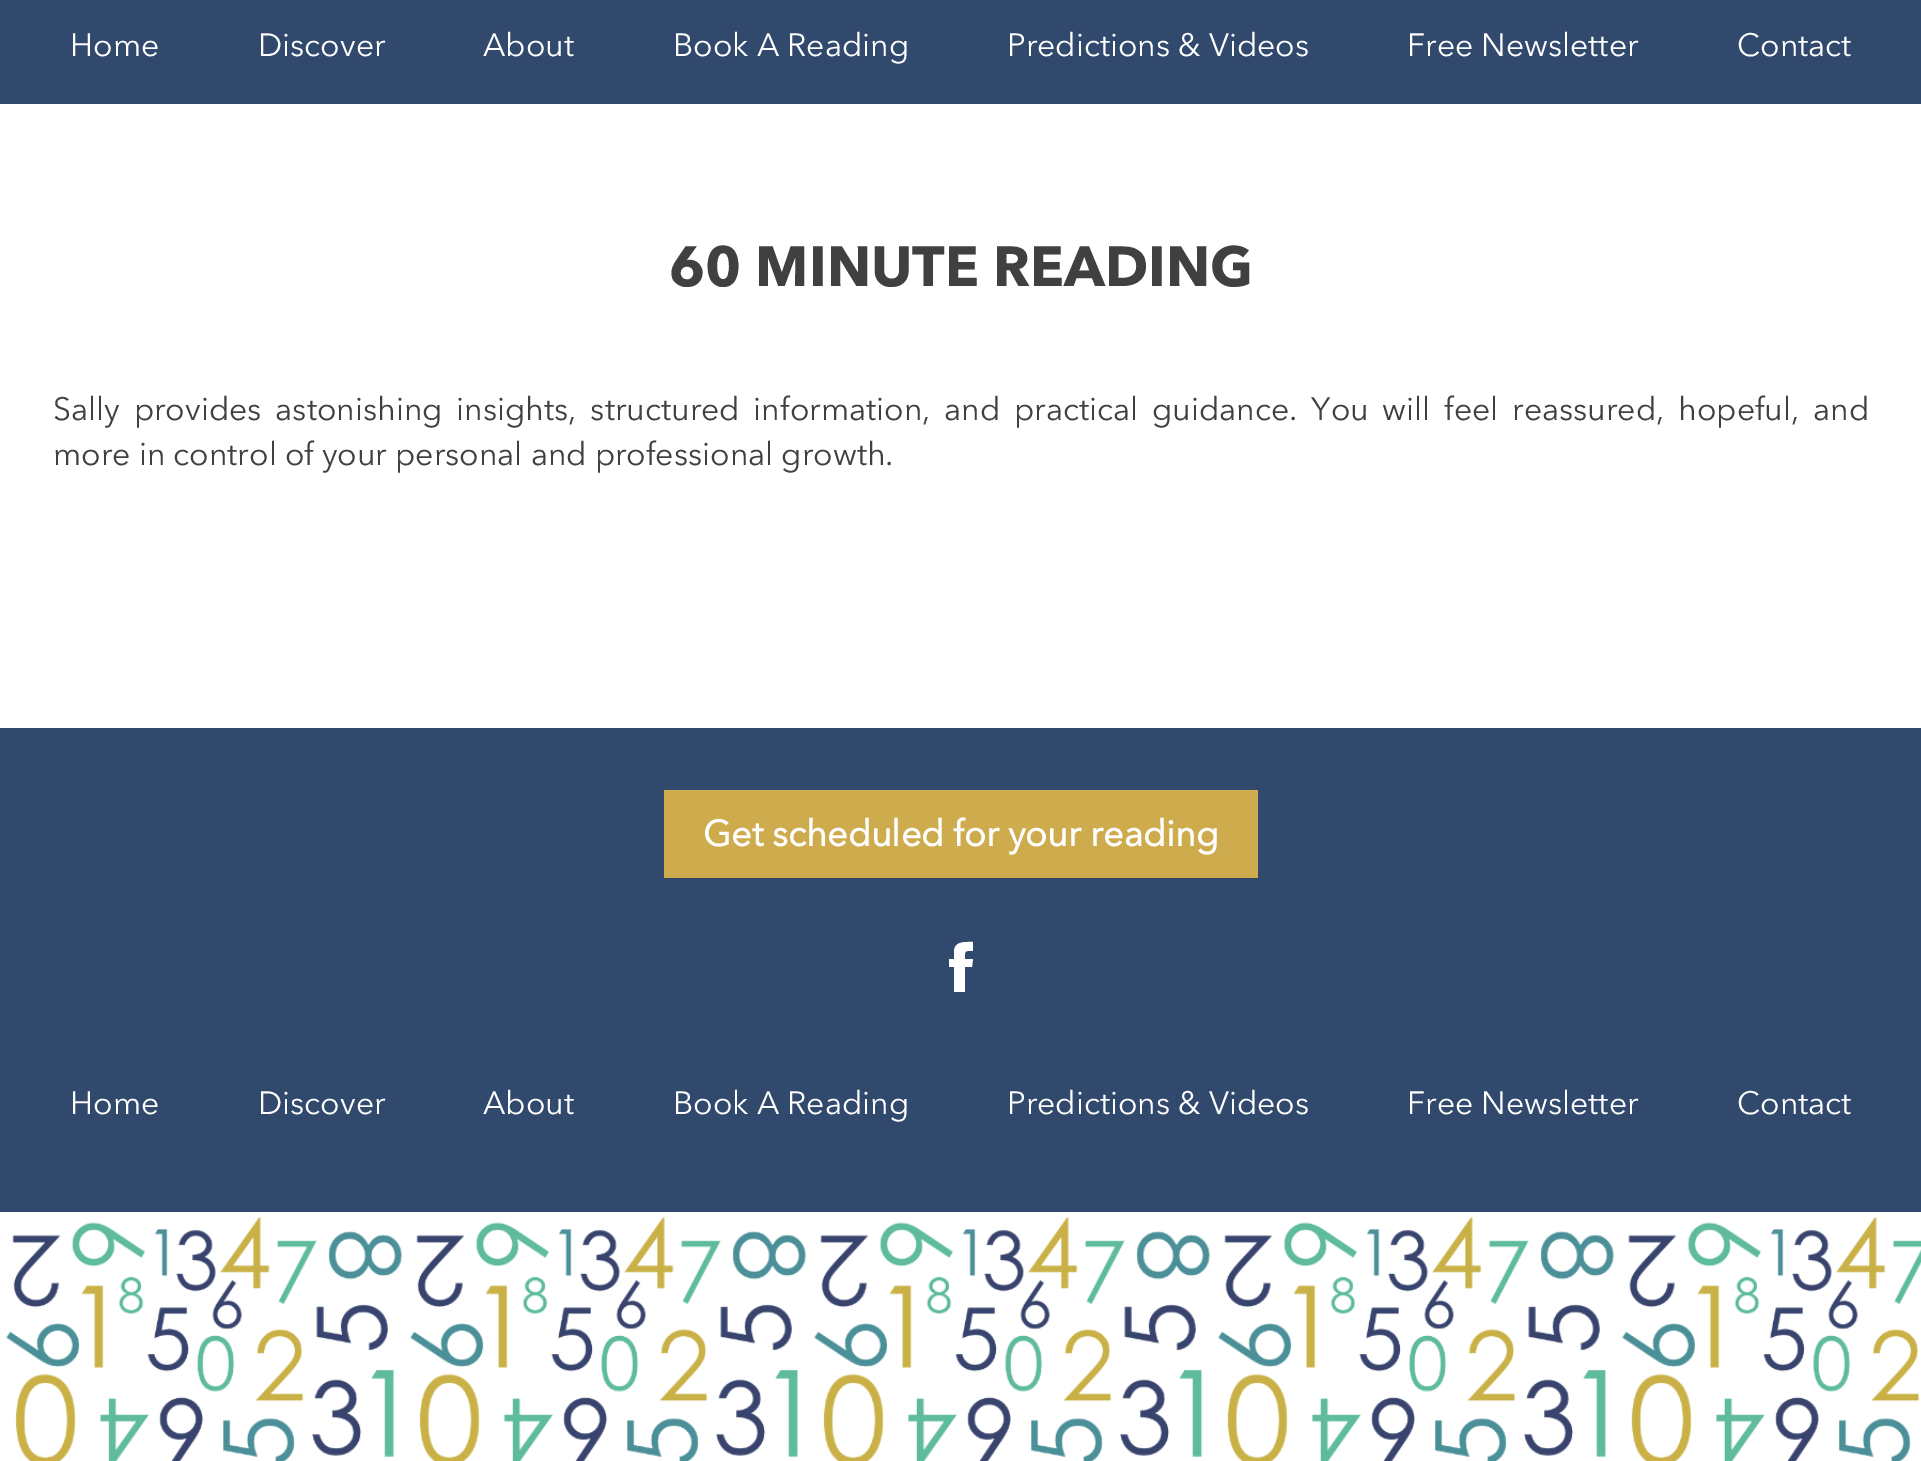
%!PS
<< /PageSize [1921 1461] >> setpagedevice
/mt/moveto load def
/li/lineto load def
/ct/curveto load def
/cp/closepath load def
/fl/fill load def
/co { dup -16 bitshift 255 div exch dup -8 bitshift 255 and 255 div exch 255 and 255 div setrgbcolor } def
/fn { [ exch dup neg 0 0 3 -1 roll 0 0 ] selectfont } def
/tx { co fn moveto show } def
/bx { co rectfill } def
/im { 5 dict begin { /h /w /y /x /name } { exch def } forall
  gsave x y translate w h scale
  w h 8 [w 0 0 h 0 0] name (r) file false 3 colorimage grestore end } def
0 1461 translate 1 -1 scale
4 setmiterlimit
0 0 1921 1461 16#FFFFFF bx
0 0 1921 104 16#31496D bx
0 728 1921 484 16#31496D bx
664 790 594 88 16#CEAB4D bx
16#FFFFFF co
954 952 mt 954 959 li 949 959 li 949 967 li 954 967 li 954 992 li 965 992 li 965 967 li 972 967 li 973 959 li 965 959 li 965 950 964 951 973 951 ct 973 942 li 965 942 954 941 954 952 ct cp fl
(media/1.raw) 6 1217 1915 244 im
(Home) 70 56 /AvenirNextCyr-Regular 32 16#FFFFFF tx
(Discover) 258 56 /AvenirNextCyr-Regular 32 16#FFFFFF tx
(About) 483 56 /AvenirNextCyr-Regular 32 16#FFFFFF tx
(Book A Reading) 673 56 /AvenirNextCyr-Regular 32 16#FFFFFF tx
(Predictions & Videos) 1007 56 /AvenirNextCyr-Regular 32 16#FFFFFF tx
(Free Newsletter) 1407 56 /AvenirNextCyr-Regular 32 16#FFFFFF tx
(Contact) 1737 56 /AvenirNextCyr-Regular 32 16#FFFFFF tx
(60 MINUTE READING) 669 286 /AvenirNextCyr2-Bold 56 16#404040 tx
/AvenirNextCyr-Regular 32 fn
53 420 mt 5.75 0 32 (Sally provides astonishing insights, structured information, and practical guidance. You will feel reassured, hopeful, and) widthshow
(more in control of your personal and professional growth.) 53 465 /AvenirNextCyr-Regular 32 16#404040 tx
(Get scheduled for your reading) 703 846 /AvenirNextCyr-Bold 36 16#FFFFFF tx
(Home) 70 1114 /AvenirNextCyr-Regular 32 16#FFFFFF tx
(Discover) 258 1114 /AvenirNextCyr-Regular 32 16#FFFFFF tx
(About) 483 1114 /AvenirNextCyr-Regular 32 16#FFFFFF tx
(Book A Reading) 673 1114 /AvenirNextCyr-Regular 32 16#FFFFFF tx
(Predictions & Videos) 1007 1114 /AvenirNextCyr-Regular 32 16#FFFFFF tx
(Free Newsletter) 1407 1114 /AvenirNextCyr-Regular 32 16#FFFFFF tx
(Contact) 1737 1114 /AvenirNextCyr-Regular 32 16#FFFFFF tx
showpage
